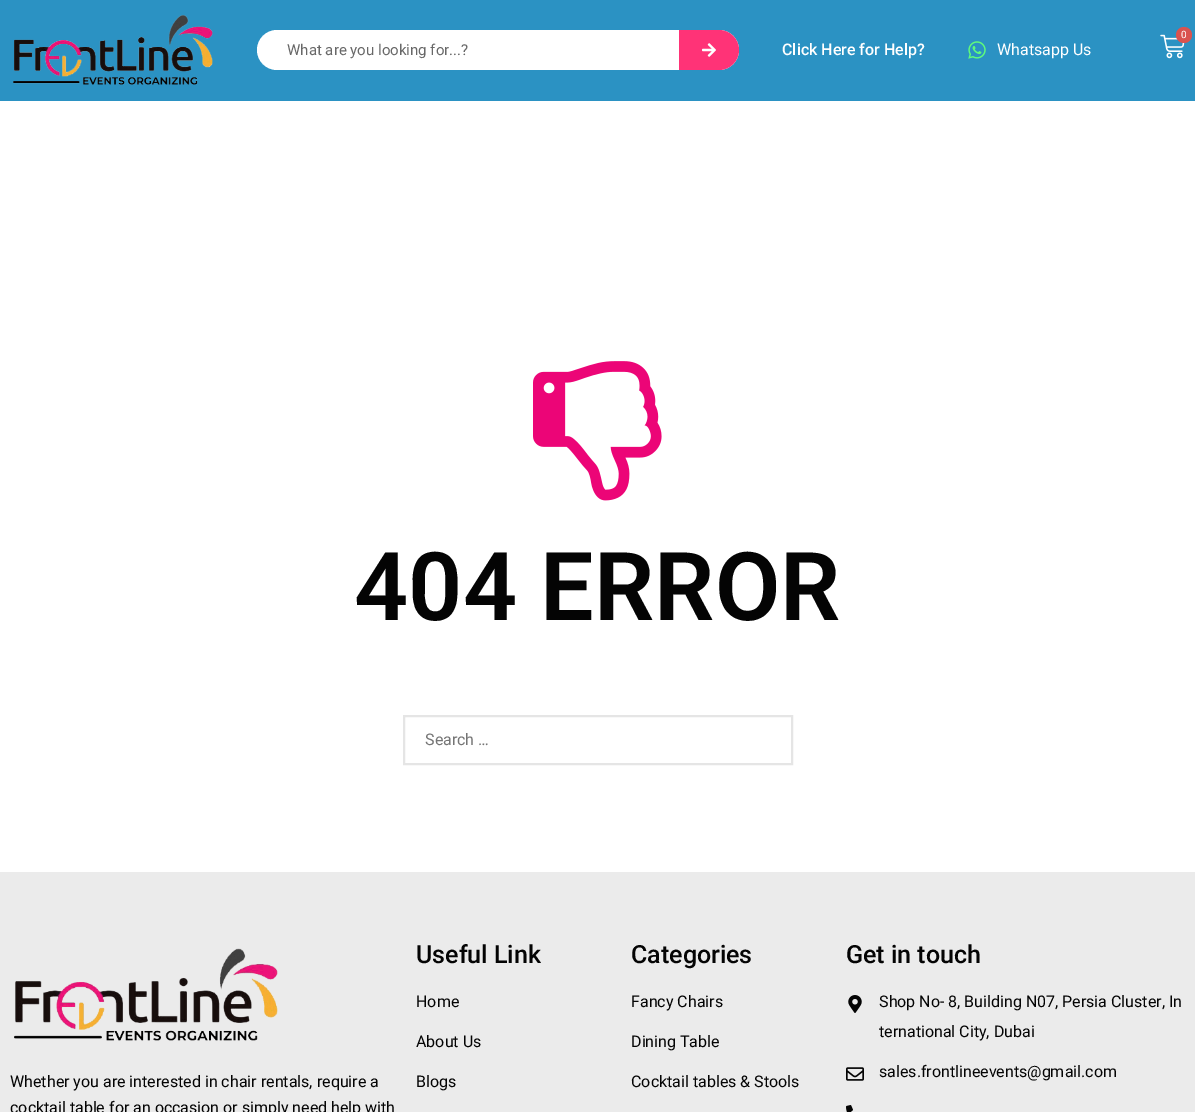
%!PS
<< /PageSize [1195 1112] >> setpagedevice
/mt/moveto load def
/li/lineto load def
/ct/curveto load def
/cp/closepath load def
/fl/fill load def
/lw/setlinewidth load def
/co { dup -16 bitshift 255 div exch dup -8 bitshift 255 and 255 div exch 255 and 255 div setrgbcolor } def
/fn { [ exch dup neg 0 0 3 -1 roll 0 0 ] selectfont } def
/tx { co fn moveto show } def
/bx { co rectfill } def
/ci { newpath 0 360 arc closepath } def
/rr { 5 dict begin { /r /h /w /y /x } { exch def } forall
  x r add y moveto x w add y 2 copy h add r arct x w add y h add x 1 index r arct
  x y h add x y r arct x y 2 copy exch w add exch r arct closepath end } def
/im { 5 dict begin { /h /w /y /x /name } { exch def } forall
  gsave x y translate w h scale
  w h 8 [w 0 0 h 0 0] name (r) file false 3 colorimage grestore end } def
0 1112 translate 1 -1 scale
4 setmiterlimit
0 0 1195 1112 16#FFFFFF bx
0 0 1195 101 16#2B92C3 bx
(media/1.raw) 1160 34 25 25 im
16#D9534F co
1184 35 8 ci fl
(media/2.raw) 13 15 200 70 im
16#FFFFFF co
257 30 482 40 20 rr fl
16#FF3377 co
679 30 mt 719 30 li 730 30 739 39 739 50 ct 739 61 730 70 719 70 ct 679 70 li cp fl
(media/3.raw) 702 43 14 14 im
(media/4.raw) 968 41 18 18 im
(media/5.raw) 533 361 129 140 im
16#E5E5E5 co
2 lw
404 716 388 48 rectstroke
0 872 1195 240 16#EBEBEB bx
(media/6.raw) 848 995 14 18 im
(media/7.raw) 846 1067 18 14 im
(media/8.raw) 846 1105 7 7 im
(media/9.raw) 14 948 264 93 im
(0) 1181 38 /Roboto-Regular 10 16#FFFFFF tx
(What are you looking for...?) 287 55 /Roboto-Regular 15 16#686868 tx
(Click Here for Help?) 782 55 /Roboto-Medium 16 16#FFFFFF tx
(Whatsapp Us) 997 55 /Roboto-Regular 16 16#FFFFFF tx
(404 ERROR) 354 620 /Roboto-SemiBold 95 16#040404 tx
(Search …) 425 745 /Roboto-Regular 16 16#757575 tx
(Useful Link) 416 963 /Roboto-Medium 25 16#040404 tx
(Home) 416 1007 /Roboto-Regular 16 16#040404 tx
(About Us) 416 1047 /Roboto-Regular 16 16#040404 tx
(Blogs) 416 1087 /Roboto-Regular 16 16#040404 tx
(Categories) 631 963 /Roboto-Medium 25 16#040404 tx
(Fancy Chairs) 631 1007 /Roboto-Regular 16 16#040404 tx
(Dining Table) 631 1047 /Roboto-Regular 16 16#040404 tx
(Cocktail tables & Stools) 631 1087 /Roboto-Regular 16 16#040404 tx
(Get in touch) 846 963 /Roboto-Medium 25 16#040404 tx
(Shop No- 8, Building N07, Persia Cluster, In) 879 1007 /Roboto-Regular 16 16#040404 tx
(ternational City, Dubai) 879 1037 /Roboto-Regular 16 16#040404 tx
(sales.frontlineevents@gmail.com) 879 1077 /Roboto-Regular 16 16#040404 tx
(Whether you are interested in chair rentals, require a) 10 1087 /Roboto-Regular 16 16#040404 tx
(cocktail table for an occasion or simply need help with) 10 1113 /Roboto-Regular 16 16#040404 tx
showpage
